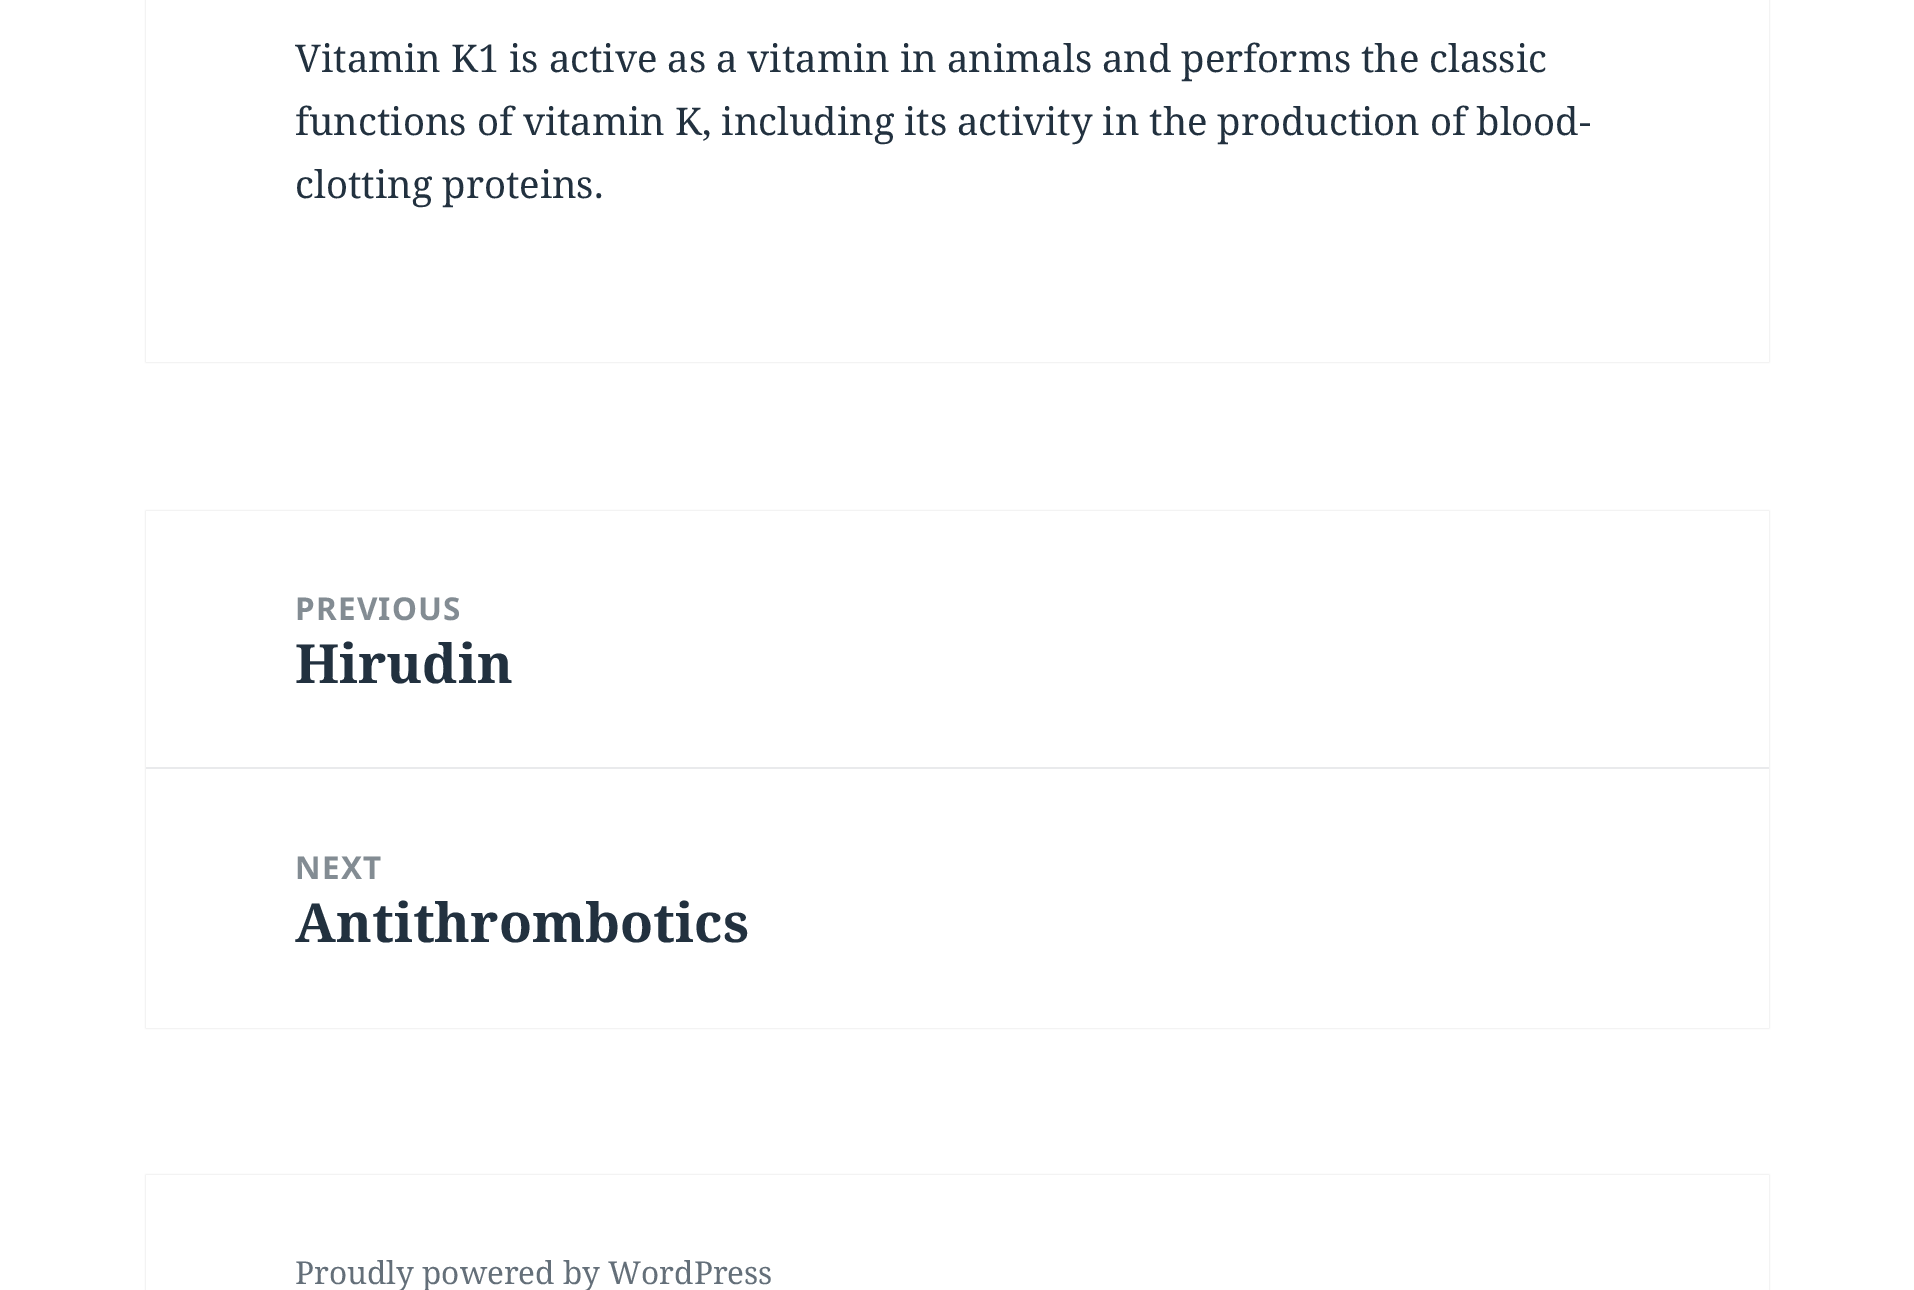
%!PS
<< /PageSize [1914 1290] /PageUsesTransparency true >> setpagedevice
/mt/moveto load def
/co { dup -16 bitshift 255 div exch dup -8 bitshift 255 and 255 div exch 255 and 255 div setrgbcolor } def
/fn { [ exch dup neg 0 0 3 -1 roll 0 0 ] selectfont } def
/tx { co fn moveto show } def
/bx { co rectfill } def
/al { dup .setfillconstantalpha .setstrokeconstantalpha } def
/rr { 5 dict begin { /r /h /w /y /x } { exch def } forall
  x r add y moveto x w add y 2 copy h add r arct x w add y h add x 1 index r arct
  x y h add x y r arct x y 2 copy exch w add exch r arct closepath end } def
/sh { 12 dict begin { /a /b /q /h /w /y /x } { exch def } forall gsave /was 0 def
  9 -2 -9 { dup b mul 4 div /e exch def 1 sub .425 mul 2.718 exch exp 1 add a .99 .min exch div /now exch def
    1 1 now sub 1 was sub div sub al /was now def
    w h .min e 2 mul add 0 gt { x e sub y e sub w e 2 mul add h e 2 mul add
      q e add b .6 mul add w h .min 2 div e add .min 0 .max rr fill } if } for grestore end } def
0 .pushpdf14devicefilter
0 1290 translate 1 -1 scale
4 setmiterlimit
0 0 1914 1290 16#FFFFFF bx
16#000000 co
146 -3 1623 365 0 1 .15 sh
146 0 1623 362 16#FFFFFF bx
16#000000 co
146 511 1623 517 0 1 .15 sh
146 511 1623 517 16#FFFFFF bx
146 767 1623 2 16#E9EAEC bx
16#000000 co
146 1175 1623 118 0 1 .15 sh
146 1175 1623 115 16#FFFFFF bx
(Vitamin K1 is active as a vitamin in animals and performs the classic) 295 72 /NotoSerif-Regular 38.25 16#22313F tx
(functions of vitamin K, including its activity in the production of blood-) 295 135 /NotoSerif-Regular 38.25 16#22313F tx
(clotting proteins.) 295 198 /NotoSerif-Regular 38.25 16#22313F tx
/NotoSans-Bold 31.5 fn
16#838C93 co
295 620 mt 1.25 0 (PREVIOUS) ashow
(Hirudin) 295 683 /NotoSerif-Bold 54 16#22313F tx
/NotoSans-Bold 31.5 fn
16#838C93 co
295 879 mt 1.25 0 (NEXT) ashow
(Antithrombotics) 295 942 /NotoSerif-Bold 54 16#22313F tx
(Proudly powered by WordPress) 295 1284 /NotoSerif-Regular 31.5 16#646F79 tx
.poppdf14devicefilter showpage
